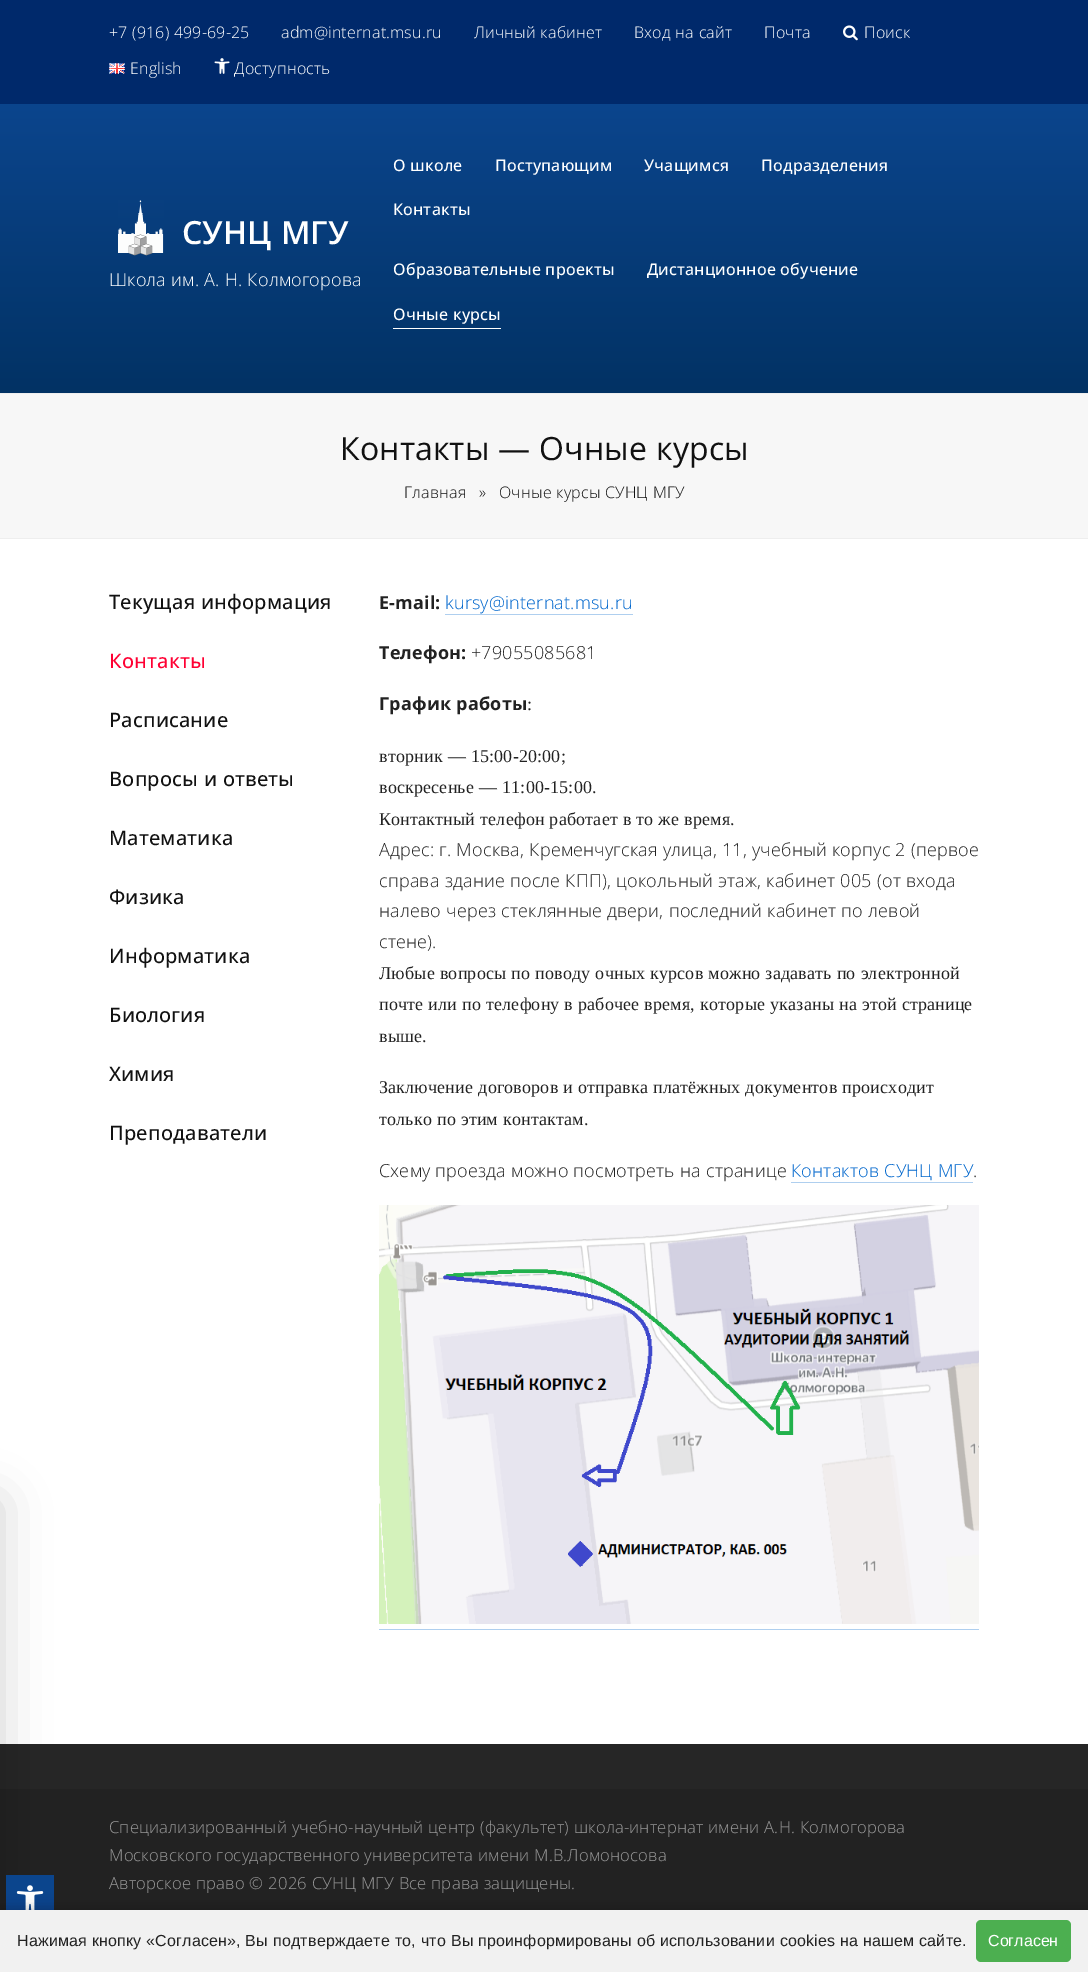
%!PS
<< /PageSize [1088 1972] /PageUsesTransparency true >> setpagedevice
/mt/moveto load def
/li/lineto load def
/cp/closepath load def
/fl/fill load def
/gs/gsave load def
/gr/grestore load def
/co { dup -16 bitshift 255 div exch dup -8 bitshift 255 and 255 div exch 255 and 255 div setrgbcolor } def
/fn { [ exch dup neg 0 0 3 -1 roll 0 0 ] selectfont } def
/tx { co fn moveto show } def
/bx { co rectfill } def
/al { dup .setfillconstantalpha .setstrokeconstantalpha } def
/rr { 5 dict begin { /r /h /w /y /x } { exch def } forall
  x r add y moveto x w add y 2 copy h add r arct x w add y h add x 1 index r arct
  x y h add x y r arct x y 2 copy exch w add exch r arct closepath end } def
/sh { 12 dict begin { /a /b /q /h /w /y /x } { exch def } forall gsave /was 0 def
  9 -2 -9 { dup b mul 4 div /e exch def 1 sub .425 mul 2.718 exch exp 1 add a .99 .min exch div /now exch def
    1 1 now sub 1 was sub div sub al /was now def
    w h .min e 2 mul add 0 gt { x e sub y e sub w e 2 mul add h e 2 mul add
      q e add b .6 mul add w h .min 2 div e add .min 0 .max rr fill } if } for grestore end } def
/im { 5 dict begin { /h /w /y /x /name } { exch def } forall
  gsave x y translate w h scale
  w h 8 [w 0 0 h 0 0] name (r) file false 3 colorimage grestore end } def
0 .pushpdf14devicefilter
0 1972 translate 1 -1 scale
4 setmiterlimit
0 0 1088 1972 16#FFFFFF bx
0 0 1088 104 16#00296B bx
(media/1.raw) 843 25 15 16 im
(media/2.raw) 109 63 16 11 im
(media/3.raw) 214 58 16 16 im
gs 0 104 mt 1088 104 li 1088 393 li 0 393 li cp clip newpath
<< /ShadingType 2 /ColorSpace /DeviceRGB /Coords [544 104 544 393] /Extend [true true] /Function << /FunctionType 2 /Domain [0 1] /C0 [.043 .271 .553] /C1 [.008 .196 .392] /N 1 >> >> shfill gr
(media/4.raw) 118 200 46 56 im
393 328 108 1 16#FFFFFF bx
0 394 1088 144 16#F7F7F7 bx
0 393 1088 1 16#EEEEEE bx
0 538 1088 1 16#EEEEEE bx
445 614 188 1 16#AFCFEF bx
791 1182 182 1 16#AFCFEF bx
(media/5.raw) 379 1205 600 419 im
379 1629 600 1 16#AFCFEF bx
0 1744 1088 45 16#262626 bx
0 1789 1088 121 16#222222 bx
16#000000 co
-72 1501 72 439 0 24 .18 sh
6 1875 48 35 16#0B458D bx
(media/6.raw) 16 1885 28 25 im
16#000000 co
-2 1907 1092 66 0 6 .2 sh
0 1910 1088 62 16#F1F1F1 bx
16#4CAF50 co
976 1920 95 42 5 rr fl
/OpenSans-Light 16 fn
16#FFFFFF co
109 38 mt .25 0 32 .18 0 (+7 \(916\) 499-69-25) awidthshow
281 38 mt .18 0 (adm@internat.msu.ru) ashow
474 38 mt .25 0 32 .18 0 (Личный кабинет) awidthshow
634 38 mt .25 0 32 .18 0 (Вход на сайт) awidthshow
764 38 mt .18 0 (Почта) ashow
864 38 mt .18 0 (Поиск) ashow
130 74 mt .18 0 (English) ashow
234 74 mt .18 0 (Доступность) ashow
/OpenSans-SemiBold 32 fn
182 244 mt .25 0 32 .18 0 (СУНЦ МГУ) awidthshow
/OpenSans-Light 18 fn
109 286 mt .25 0 32 .18 0 (Школа им. А. Н. Колмогорова) awidthshow
/OpenSans-Medium 16 fn
393 171 mt .25 0 32 .18 0 (О школе) awidthshow
495 171 mt .18 0 (Поступающим) ashow
644 171 mt .18 0 (Учащимся) ashow
761 171 mt .18 0 (Подразделения) ashow
393 215 mt .18 0 (Контакты) ashow
393 275 mt .25 0 32 .18 0 (Образовательные проекты) awidthshow
647 275 mt .25 0 32 .18 0 (Дистанционное обучение) awidthshow
393 320 mt .25 0 32 .18 0 (Очные курсы) awidthshow
/OpenSans-Regular 32 fn
16#111111 co
340 460 mt .25 0 32 .18 0 (Контакты — Очные курсы) awidthshow
/OpenSans-Light 16 fn
404 498 mt .18 0 (Главная) ashow
479 498 mt .18 0 (») ashow
499 498 mt .25 0 32 .18 0 (Очные курсы СУНЦ МГУ) awidthshow
/OpenSans-Medium 20 fn
109 609 mt .25 0 32 .18 0 (Текущая информация) awidthshow
16#FF0033 co
109 668 mt .18 0 (Контакты) ashow
16#111111 co
109 727 mt .18 0 (Расписание) ashow
109 786 mt .25 0 32 .18 0 (Вопросы и ответы) awidthshow
109 845 mt .18 0 (Математика) ashow
109 904 mt .18 0 (Физика) ashow
109 963 mt .18 0 (Информатика) ashow
109 1022 mt .18 0 (Биология) ashow
109 1081 mt .18 0 (Химия) ashow
109 1140 mt .18 0 (Преподаватели) ashow
/OpenSans-Bold 18 fn
16#222222 co
379 609 mt .18 0 (E-mail:) ashow
/OpenSans-Light 18 fn
16#0066CC co
445 609 mt .18 0 (kursy@internat.msu.ru) ashow
/OpenSans-Bold 18 fn
16#222222 co
379 659 mt .18 0 (Телефон:) ashow
/OpenSans-Light 18 fn
471 659 mt .18 0 (+79055085681) ashow
/OpenSans-Bold 18 fn
379 710 mt .25 0 32 .18 0 (График работы) awidthshow
/LiberationSerif-Regular 18 fn
527 710 mt .18 0 (:) ashow
379 762 mt .25 0 32 .18 0 (вторник — 15:00-20:00;) awidthshow
379 793 mt .25 0 32 .18 0 (воскресенье — 11:00-15:00.) awidthshow
379 825 mt .25 0 32 .18 0 (Контактный телефон работает в то же время.) awidthshow
/OpenSans-Light 18 fn
379 856 mt .18 0 (Адрес:) ashow
439 856 mt .25 0 32 .18 0 (г. Москва, Кременчугская улица, 11, учебный корпус 2 \(первое) awidthshow
379 887 mt .25 0 32 .18 0 (справа здание после КПП\), цокольный этаж, кабинет 005 \(от входа) awidthshow
379 917 mt .25 0 32 .18 0 (налево через стеклянные двери, последний кабинет по левой) awidthshow
379 948 mt .18 0 (стене\).) ashow
/LiberationSerif-Regular 18 fn
379 979 mt .25 0 32 .18 0 (Любые вопросы по поводу очных курсов можно задавать по электронной) awidthshow
379 1010 mt .25 0 32 .18 0 (почте или по телефону в рабочее время, которые указаны на этой странице) awidthshow
379 1042 mt .18 0 (выше.) ashow
379 1093 mt .25 0 32 .18 0 (Заключение договоров и отправка платёжных документов происходит) awidthshow
379 1125 mt .25 0 32 .18 0 (только по этим контактам.) awidthshow
/OpenSans-Light 18 fn
379 1177 mt .25 0 32 .18 0 (Схему проезда можно посмотреть на странице) awidthshow
16#0066CC co
791 1177 mt .25 0 32 .18 0 (Контактов СУНЦ МГУ) awidthshow
16#222222 co
973 1177 mt .18 0 (.) ashow
/OpenSans-Light 16.6 fn
16#999999 co
109 1833 mt .25 0 32 .18 0 (Специализированный учебно-научный центр \(факультет\) школа-интернат имени А.Н. Колмогорова) awidthshow
109 1861 mt .25 0 32 .18 0 (Московского государственного университета имени М.В.Ломоносова) awidthshow
109 1889 mt .25 0 32 .18 0 (Авторское право © 2026 СУНЦ МГУ Все права защищены.) awidthshow
/LiberationSans-Regular 16 fn
16#222222 co
17 1946 mt .25 0 32 .18 0 (Нажимая кнопку «Согласен», Вы подтверждаете то, что Вы проинформированы об использовании cookies на нашем сайте.) awidthshow
(Согласен) 988 1946 /LiberationSans-Regular 16 16#FFFFFF tx
.poppdf14devicefilter showpage
